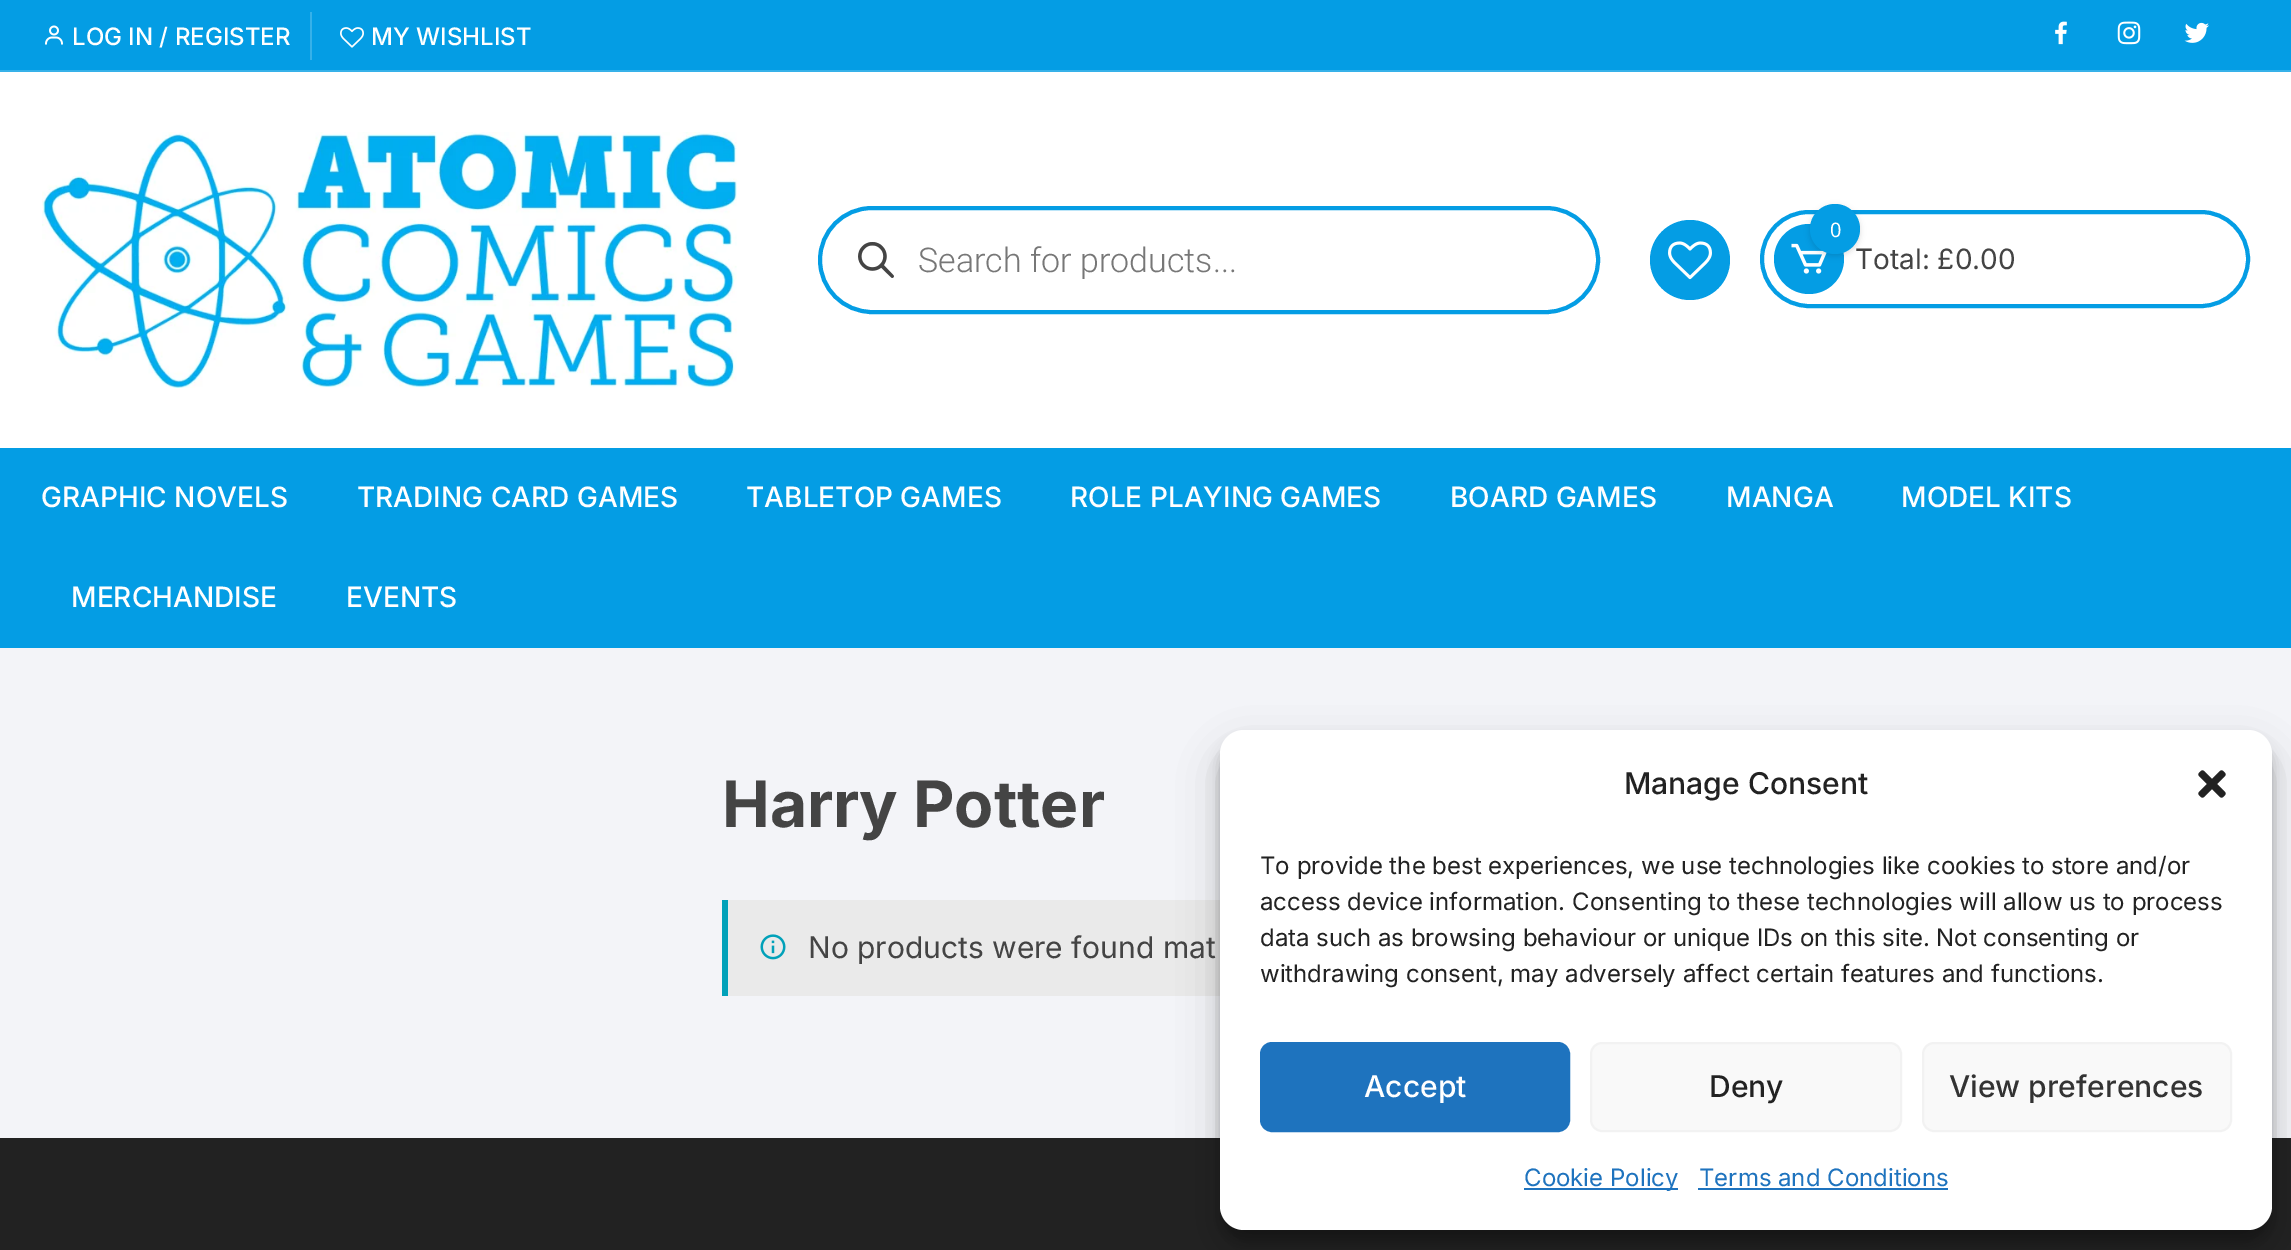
%!PS
<< /PageSize [2291 1250] /PageUsesTransparency true >> setpagedevice
/fl/fill load def
/st/stroke load def
/gs/gsave load def
/gr/grestore load def
/lw/setlinewidth load def
/co { dup -16 bitshift 255 div exch dup -8 bitshift 255 and 255 div exch 255 and 255 div setrgbcolor } def
/fn { [ exch dup neg 0 0 3 -1 roll 0 0 ] selectfont } def
/tx { co fn moveto show } def
/bx { co rectfill } def
/al { dup .setfillconstantalpha .setstrokeconstantalpha } def
/ci { newpath 0 360 arc closepath } def
/rr { 5 dict begin { /r /h /w /y /x } { exch def } forall
  x r add y moveto x w add y 2 copy h add r arct x w add y h add x 1 index r arct
  x y h add x y r arct x y 2 copy exch w add exch r arct closepath end } def
/sh { 12 dict begin { /a /b /q /h /w /y /x } { exch def } forall gsave /was 0 def
  9 -2 -9 { dup b mul 4 div /e exch def 1 sub .425 mul 2.718 exch exp 1 add a .99 .min exch div /now exch def
    1 1 now sub 1 was sub div sub al /was now def
    w h .min e 2 mul add 0 gt { x e sub y e sub w e 2 mul add h e 2 mul add
      q e add b .6 mul add w h .min 2 div e add .min 0 .max rr fill } if } for grestore end } def
/im { 5 dict begin { /h /w /y /x /name } { exch def } forall
  gsave x y translate w h scale
  w h 8 [w 0 0 h 0 0] name (r) file false 3 colorimage grestore end } def
0 .pushpdf14devicefilter
0 1250 translate 1 -1 scale
4 setmiterlimit
0 0 2291 1250 16#F3F4F8 bx
0 72 2291 376 16#FFFFFF bx
0 0 2291 70 16#049DE4 bx
0 70 2291 2 16#36B1E9 bx
310 12 2 48 16#36B1E9 bx
(media/1.raw) 45 25 18 20 im
(media/2.raw) 340 27 24 21 im
(media/3.raw) 2055 21 12 24 im
(media/4.raw) 2117 21 24 24 im
(media/5.raw) 2184 22 25 21 im
(media/6.raw) 42 132 695 256 im
16#049DE4 co
4 lw
820 208 778 104 52 rr st
(media/7.raw) 858 242 36 36 im
1690 260 40 ci fl
(media/8.raw) 1668 241 44 39 im
1762 212 486 94 47 rr st
1809 259 35 ci fl
(media/9.raw) 1791 243 36 31 im
16#000000 co
1810 206 50 50 25 3 .13 sh
0 448 2291 200 16#049DE4 bx
728 900 492 96 16#EAEAEA bx
722 900 6 96 16#01A1B9 bx
(media/10.raw) 760 934 26 26 im
0 1138 2291 112 16#222222 bx
16#000000 co
1220 742 1052 500 24 6 .23 sh
1220 750 1052 500 24 20 .19 sh
16#FFFFFF co
1220 730 1052 500 24 rr fl
(media/11.raw) 2198 770 28 28 im
16#1E73BE co
1261 1043 308 88 11 rr gs fl gr
2 lw
st
16#F9F9F9 co
1591 1043 310 88 11 rr gs fl gr
16#F2F2F2 co
st
16#F9F9F9 co
1923 1043 308 88 11 rr gs fl gr
16#F2F2F2 co
st
1524 1188 154 2 16#1E73BE bx
1698 1188 250 2 16#1E73BE bx
(LOG IN / REGISTER) 72 45 /Inter-Medium 24 16#FFFFFF tx
(MY WISHLIST) 371 45 /Inter-Medium 24 16#FFFFFF tx
(Search for products...) 918 272 /Roboto-Light 34 16#777777 tx
(Total: £0.00) 1855 269 /Inter-Regular 28 16#444444 tx
16#049DE4 co
1835 229 25 ci fl
(0) 1830 237 /NotoSans-Regular 20 16#FFFFFF tx
(GRAPHIC NOVELS) 41 507 /Inter-Medium 28 16#FFFFFF tx
(TRADING CARD GAMES) 357 507 /Inter-Medium 28 16#FFFFFF tx
(TABLETOP GAMES) 746 507 /Inter-Medium 28 16#FFFFFF tx
(ROLE PLAYING GAMES) 1070 507 /Inter-Medium 28 16#FFFFFF tx
(BOARD GAMES) 1450 507 /Inter-Medium 28 16#FFFFFF tx
(MANGA) 1726 507 /Inter-Medium 28 16#FFFFFF tx
(MODEL KITS) 1901 507 /Inter-Medium 28 16#FFFFFF tx
(MERCHANDISE) 71 607 /Inter-Medium 28 16#FFFFFF tx
(EVENTS) 346 607 /Inter-Medium 28 16#FFFFFF tx
(Harry Potter) 722 827 /Inter-Bold 64 16#444444 tx
(No products were found mat) 808 958 /Inter-Regular 30 16#444444 tx
(Manage Consent) 1624 794 /Inter-Medium 30 16#222222 tx
(To provide the best experiences, we use technologies like cookies to store and/or) 1260 874 /Inter-Regular 24 16#222222 tx
(access device information. Consenting to these technologies will allow us to process) 1260 910 /Inter-Regular 24 16#222222 tx
(data such as browsing behaviour or unique IDs on this site. Not consenting or) 1260 946 /Inter-Regular 24 16#222222 tx
(withdrawing consent, may adversely affect certain features and functions.) 1260 982 /Inter-Regular 24 16#222222 tx
(Accept) 1364 1097 /Inter-Medium 30 16#FFFFFF tx
(Deny) 1709 1097 /Inter-Medium 30 16#222222 tx
(View preferences) 1949 1097 /Inter-Medium 30 16#333333 tx
(Cookie Policy) 1524 1186 /Inter-Regular 24 16#1E73BE tx
(Terms and Conditions) 1699 1186 /Inter-Regular 24 16#1E73BE tx
.poppdf14devicefilter showpage
